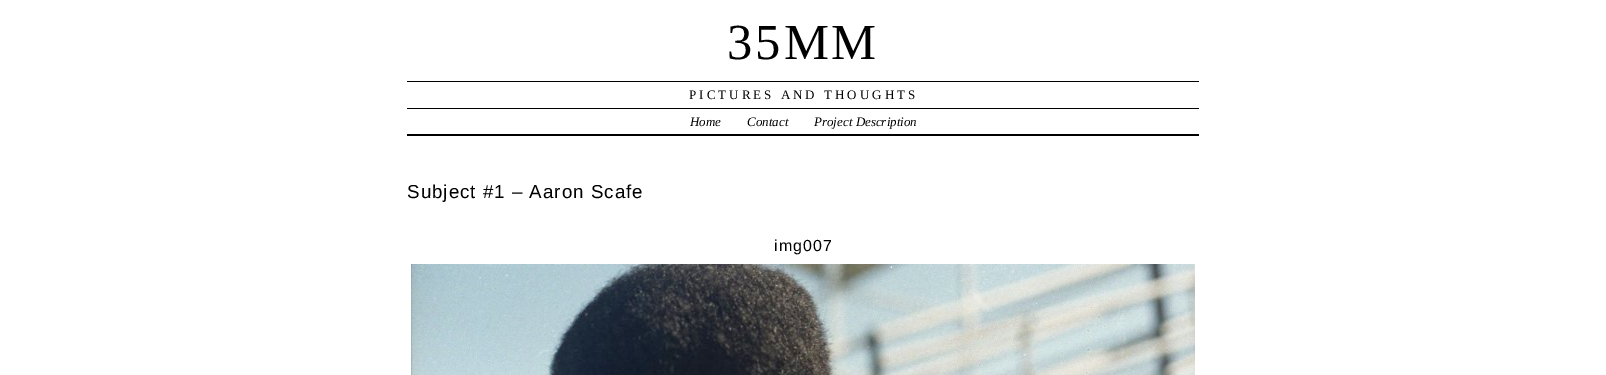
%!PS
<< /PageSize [1606 375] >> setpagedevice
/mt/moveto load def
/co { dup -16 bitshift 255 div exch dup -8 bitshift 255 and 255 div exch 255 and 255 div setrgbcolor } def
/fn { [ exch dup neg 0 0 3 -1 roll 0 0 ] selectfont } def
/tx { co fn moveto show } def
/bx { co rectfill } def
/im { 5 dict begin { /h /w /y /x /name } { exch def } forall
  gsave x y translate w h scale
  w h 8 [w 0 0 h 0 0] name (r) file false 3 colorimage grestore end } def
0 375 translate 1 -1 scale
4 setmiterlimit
0 0 1606 375 16#FFFFFF bx
407 81 792 1 16#000000 bx
407 108 792 1 16#000000 bx
407 134 792 2 16#000000 bx
(media/1.raw) 411 264 784 111 im
/LiberationSerif-Regular 50.5 fn
727 59 mt 3 0 (35MM) ashow
/LiberationSerif-Regular 13 fn
689 99 mt 3 0 (PICTURES AND THOUGHTS) ashow
(Home) 690 126 /LiberationSerif-Italic 13 16#000000 tx
(Contact) 747 126 /LiberationSerif-Italic 13 16#000000 tx
(Project Description) 814 126 /LiberationSerif-Italic 13 16#000000 tx
/LiberationSans-Regular 18.75 fn
407 198 mt 1 0 (Subject #1 – Aaron Scafe) ashow
/LiberationSans-Regular 16 fn
774 251 mt 1 0 (img007) ashow
showpage
